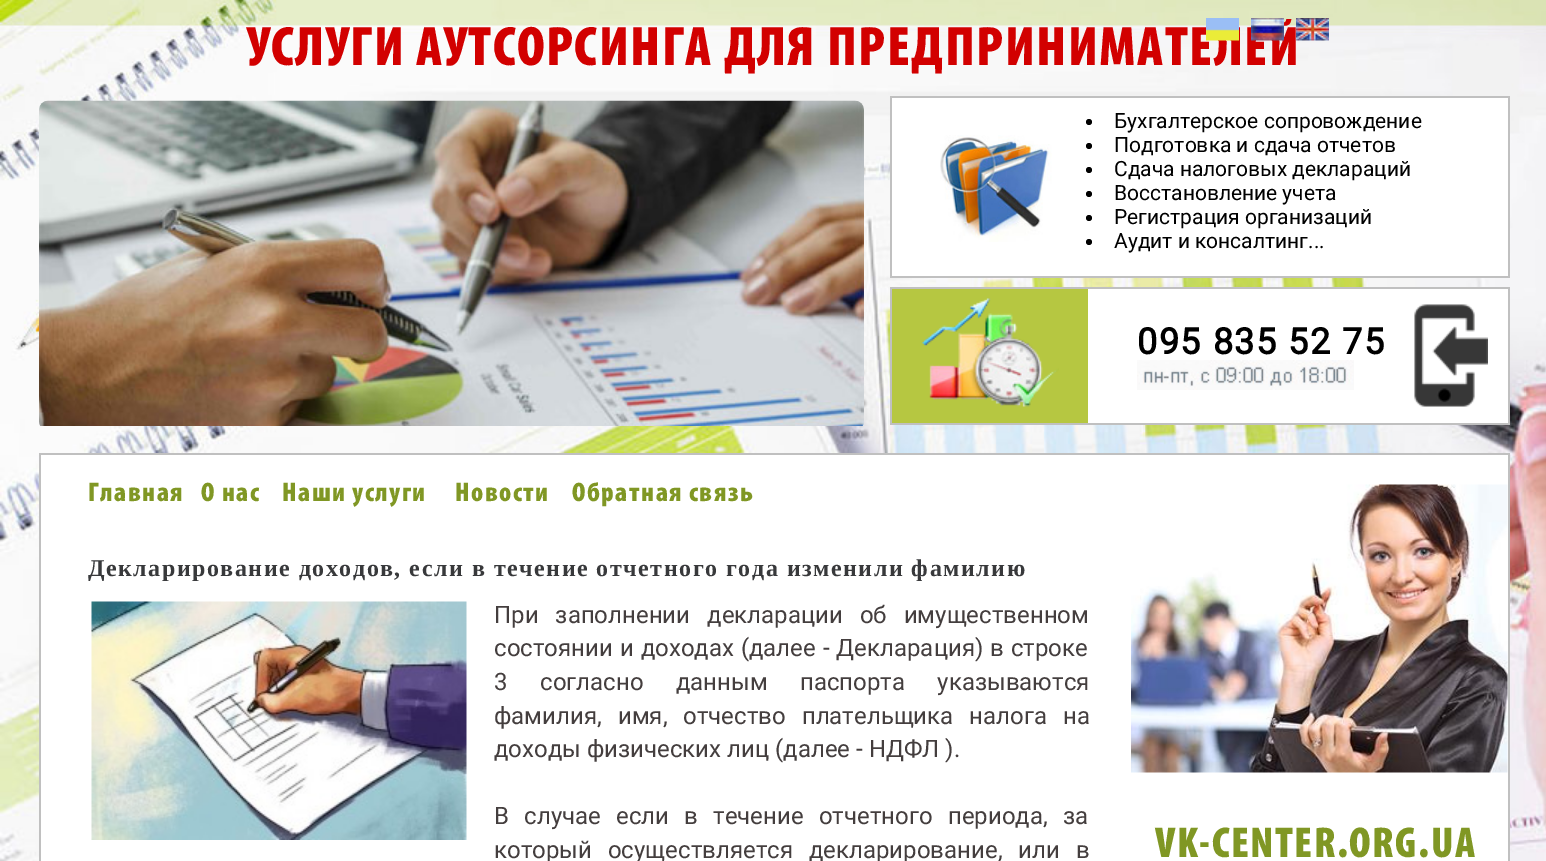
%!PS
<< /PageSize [1546 861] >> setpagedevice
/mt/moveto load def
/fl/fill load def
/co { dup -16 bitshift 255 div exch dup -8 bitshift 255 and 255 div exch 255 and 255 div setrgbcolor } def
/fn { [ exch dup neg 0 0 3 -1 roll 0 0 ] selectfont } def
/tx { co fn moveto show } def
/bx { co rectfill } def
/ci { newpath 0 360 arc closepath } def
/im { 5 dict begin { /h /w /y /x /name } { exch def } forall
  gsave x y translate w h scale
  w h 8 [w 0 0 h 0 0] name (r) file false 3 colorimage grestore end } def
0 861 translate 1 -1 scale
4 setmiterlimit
0 0 1546 861 16#FFFFFF bx
(media/1.raw) 0 0 1546 861 im
(media/4.raw) 1296 18 33 23 im
(media/5.raw) 39 100 825 326 im
892 98 616 178 16#FFFFFF bx
890 96 619 2 16#C0C0C0 bx
1508 96 2 182 16#C0C0C0 bx
890 276 619 2 16#C0C0C0 bx
890 96 2 182 16#C0C0C0 bx
(media/6.raw) 940 135 112 107 im
16#000000 co
1089 122 3 ci fl
1089 146 3 ci fl
1089 170 3 ci fl
1089 194 3 ci fl
1089 218 3 ci fl
1089 242 3 ci fl
1088 289 420 134 16#FFFFFF bx
890 287 619 2 16#C0C0C0 bx
1508 287 2 138 16#C0C0C0 bx
890 423 619 2 16#C0C0C0 bx
890 287 2 138 16#C0C0C0 bx
892 289 196 134 16#B6C741 bx
(media/7.raw) 922 298 137 109 im
(media/8.raw) 1137 360 217 30 im
(media/9.raw) 1414 304 74 103 im
41 455 1467 406 16#FFFFFF bx
39 453 1470 2 16#C0C0C0 bx
1508 453 2 408 16#C0C0C0 bx
39 453 2 408 16#C0C0C0 bx
(media/10.raw) 91 601 376 239 im
(media/11.raw) 1131 484 377 289 im
/Myriad-Black 56 fn
16#D20000 co
247 65 mt 1.5 0 (УСЛУГИ АУТСОРСИНГА ДЛЯ ПРЕДПРИНИМАТЕЛЕЙ) ashow
(media/3.raw) 1251 18 33 23 im
(media/2.raw) 1206 18 33 23 im
(Бухгалтерское сопровождение) 1114 128 /Roboto-Regular 21 16#000000 tx
(Подготовка и сдача отчетов) 1114 152 /Roboto-Regular 21 16#000000 tx
(Сдача налоговых деклараций) 1114 176 /Roboto-Regular 21 16#000000 tx
(Восстановление учета) 1114 200 /Roboto-Regular 21 16#000000 tx
(Регистрация организаций) 1114 224 /Roboto-Regular 21 16#000000 tx
(Аудит и консалтинг...) 1114 248 /Roboto-Regular 21 16#000000 tx
/Roboto-Bold 36 fn
1137 354 mt 1.5 0 (095 835 52 75) ashow
/Myriad-Black 27 fn
16#809724 co
88 501 mt 1.5 0 (Главная) ashow
201 501 mt 1.5 0 (О нас) ashow
282 501 mt 1.5 0 (Наши услуги) ashow
455 501 mt 1.5 0 (Новости) ashow
572 501 mt 1.5 0 (Обратная связь) ashow
/LiberationSerif-Bold 24 fn
16#38393B co
88 576 mt 1.5 0 (Декларирование доходов, если в течение отчетного года изменили фамилию) ashow
/Roboto-Regular 24 fn
16#443E3E co
494 623 mt 11 0 32 (При заполнении декларации об имущественном) widthshow
494 656 mt 1 0 32 (состоянии и доходах \(далее - Декларация\) в строке) widthshow
494 690 mt 26.5 0 32 (3 согласно данным паспорта указываются) widthshow
494 724 mt 10 0 32 (фамилия, имя, отчество плательщика налога на) widthshow
(доходы физических лиц \(далее - НДФЛ \).) 494 757 /Roboto-Regular 24 16#443E3E tx
494 824 mt 9.25 0 32 (В случае если в течение отчетного периода, за) widthshow
494 858 mt 10 0 32 (который осуществляется декларирование, или в) widthshow
/Myriad-Black 43.5 fn
16#809724 co
1155 857 mt 1.5 0 (VK-CENTER.ORG.UA) ashow
showpage
